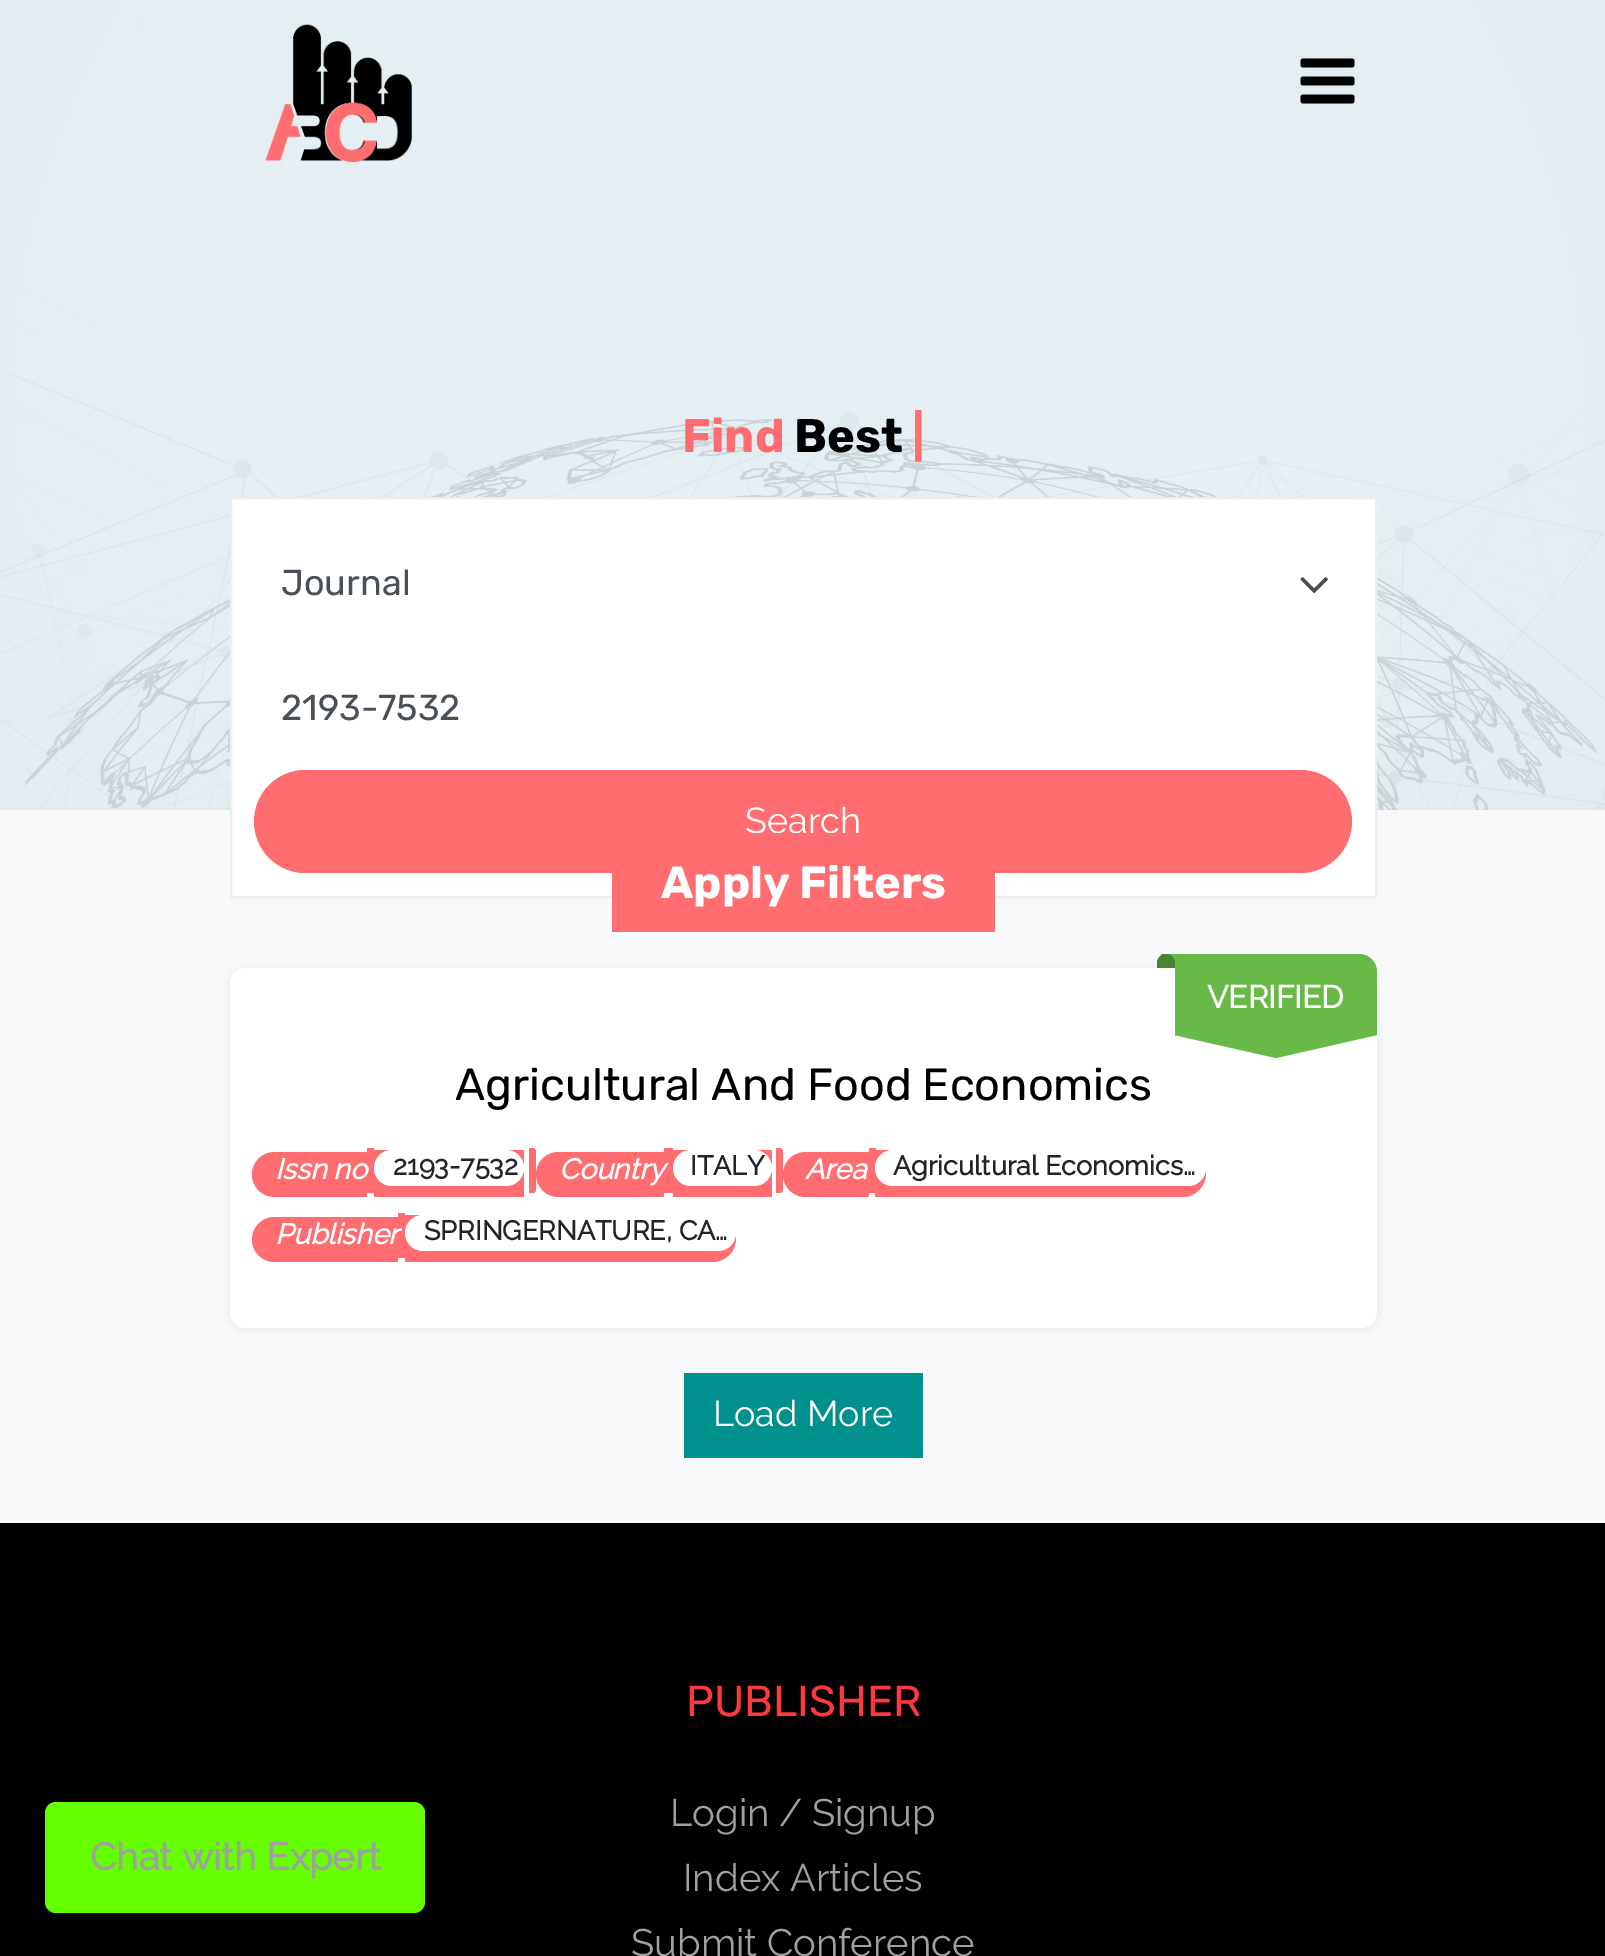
%!PS
<< /PageSize [1605 1956] /PageUsesTransparency true >> setpagedevice
/mt/moveto load def
/li/lineto load def
/ct/curveto load def
/cp/closepath load def
/fl/fill load def
/st/stroke load def
/gs/gsave load def
/gr/grestore load def
/lw/setlinewidth load def
/co { dup -16 bitshift 255 div exch dup -8 bitshift 255 and 255 div exch 255 and 255 div setrgbcolor } def
/fn { [ exch dup neg 0 0 3 -1 roll 0 0 ] selectfont } def
/tx { co fn moveto show } def
/bx { co rectfill } def
/al { dup .setfillconstantalpha .setstrokeconstantalpha } def
/rr { 5 dict begin { /r /h /w /y /x } { exch def } forall
  x r add y moveto x w add y 2 copy h add r arct x w add y h add x 1 index r arct
  x y h add x y r arct x y 2 copy exch w add exch r arct closepath end } def
/sh { 12 dict begin { /a /b /q /h /w /y /x } { exch def } forall gsave /was 0 def
  9 -2 -9 { dup b mul 4 div /e exch def 1 sub .425 mul 2.718 exch exp 1 add a .99 .min exch div /now exch def
    1 1 now sub 1 was sub div sub al /was now def
    w h .min e 2 mul add 0 gt { x e sub y e sub w e 2 mul add h e 2 mul add
      q e add b .6 mul add w h .min 2 div e add .min 0 .max rr fill } if } for grestore end } def
/im { 5 dict begin { /h /w /y /x /name } { exch def } forall
  gsave x y translate w h scale
  w h 8 [w 0 0 h 0 0] name (r) file false 3 colorimage grestore end } def
0 .pushpdf14devicefilter
0 1956 translate 1 -1 scale
4 setmiterlimit
0 0 1605 1956 16#EAEFF3 bx
16#000000 co
241 792 850 97 0 9 .47 sh
515 792 851 97 0 9 .47 sh
0.2 al
0 0 1605 810 16#ADD8E6 bx
1 al
(media/3.raw) 0 0 1605 810 im
(media/1.raw) 265 24 147 138 im
(media/2.raw) 1300 58 55 46 im
0 810 1605 713 16#F8F9FA bx
16#FFFFFF co
231 498 mt 1376 498 li 1376 897 li 231 897 li cp gs fl gr
16#EFEEEE co
2 lw
st
(media/4.raw) 1300 577 28 17 im
16#FF6D71 co
254 770 1098 103 51.5 rr fl
16#000000 co
234 974 1139 351 11 5.5 .17 sh
16#FFFFFF co
230 968 1147 360 16 rr fl
16#69B949 co
1175 954 mt 1359 954 li 1369 954 1377 962 1377 972 ct 1377 1035 li 1175 1035 li cp fl
1161 954 14 9 16#69B949 bx
16#4A8432 co
1166 954 mt 1171 954 1175 958 1175 963 ct 1175 968 li 1157 968 li 1157 963 li 1157 958 1161 954 1166 954 ct cp fl
16#69B949 co
1174 1035 mt 1377 1035 li 1276 1058 li cp fl
16#FF6D71 co
274.5 1152 mt 367 1152 li 367 1197 li 274.5 1197 li 262 1197 252 1187 252 1174.5 ct 252 1162 262 1152 274.5 1152 ct cp fl
367 1148 7 45 16#FF6D71 bx
374 1150 150 47 16#FF6D71 bx
529 1148 mt 532.5 1148 li 534.5 1148 536 1149.5 536 1151.5 ct 536 1189.5 li 536 1191.5 534.5 1193 532.5 1193 ct 529 1193 li cp fl
16#FFFFFF co
374 1150 150 36 18 rr fl
16#FF6D71 co
558.5 1152 mt 664 1152 li 664 1197 li 558.5 1197 li 546 1197 536 1187 536 1174.5 ct 536 1162 546 1152 558.5 1152 ct cp fl
664 1148 9 45 16#FF6D71 bx
673 1150 99 47 16#FF6D71 bx
776 1148 mt 779.5 1148 li 781.5 1148 783 1149.5 783 1151.5 ct 783 1189.5 li 783 1191.5 781.5 1193 779.5 1193 ct 776 1193 li cp fl
16#FFFFFF co
673 1150 99 36 18 rr fl
16#FF6D71 co
805.5 1152 mt 869 1152 li 869 1197 li 805.5 1197 li 793 1197 783 1187 783 1174.5 ct 783 1162 793 1152 805.5 1152 ct cp fl
869 1148 7 45 16#FF6D71 bx
875 1150 mt 1182.5 1150 li 1195.5 1150 1206 1160.5 1206 1173.5 ct 1206 1186.5 1195.5 1197 1182.5 1197 ct 875 1197 li cp fl
16#FFFFFF co
875 1150 331 36 18 rr fl
16#FF6D71 co
274.5 1217 mt 398 1217 li 398 1262 li 274.5 1262 li 262 1262 252 1252 252 1239.5 ct 252 1227 262 1217 274.5 1217 ct cp fl
398 1213 7 45 16#FF6D71 bx
405 1215 mt 712.5 1215 li 725.5 1215 736 1225.5 736 1238.5 ct 736 1251.5 725.5 1262 712.5 1262 ct 405 1262 li cp fl
16#FFFFFF co
405 1215 331 36 18 rr fl
684 1373 239 85 16#00918E bx
0 1523 1605 433 16#000000 bx
16#66FF00 co
45 1802 380 111 11 rr fl
(Find) 682 452 /Rubik-Bold 47 16#FF6D71 tx
(Best) 794 452 /Rubik-Bold 47 16#000000 tx
(|) 912 452 /Rubik-Bold 47 16#FF6D71 tx
(Journal) 281 595 /Rubik-Regular 36 16#495057 tx
(2193-7532) 281 720 /Rubik-Regular 36 16#495057 tx
(Search) 745 833 /Raleway-Thin 36 16#FFFFFF tx
612 833 383 99 16#FF6D71 bx
(Apply Filters) 661 898 /Rubik-Bold 45 16#FFFFFF tx
(VERIFIED) 1207 1008 /Raleway-Bold 31.5 16#FFFFFF tx
(Agricultural And Food Economics) 455 1100 /Rubik-Regular 45 16#000000 tx
(Issn no) 275 1179 /Raleway-BoldItalic 28.5 16#FFFFFF tx
(2193-7532) 393 1175 /Raleway-Bold 27 16#212529 tx
(Country) 559 1179 /Raleway-BoldItalic 28.5 16#FFFFFF tx
(ITALY) 690 1175 /Raleway-Bold 27 16#212529 tx
(Area) 805 1179 /Raleway-BoldItalic 28.5 16#FFFFFF tx
(Agricultural Economics…) 893 1175 /Raleway-Bold 27 16#212529 tx
(Publisher) 275 1244 /Raleway-BoldItalic 28.5 16#FFFFFF tx
(SPRINGERNATURE, CA…) 424 1240 /Raleway-Bold 27 16#212529 tx
(Load More) 713 1426 /Raleway-Thin 36 16#FFFFFF tx
(Chat with Expert) 90 1870 /Raleway-Bold 38.25 16#A0A0A0 tx
(PUBLISHER) 686 1716 /Rubik-Regular 43.25 16#FF383E tx
(Login / Signup) 670 1826 /Raleway-Thin 38.25 16#A0A0A0 tx
(Index Articles) 683 1891 /Raleway-Thin 38.25 16#A0A0A0 tx
(Submit Conference) 631 1956 /Raleway-Thin 38.25 16#A0A0A0 tx
.poppdf14devicefilter showpage
